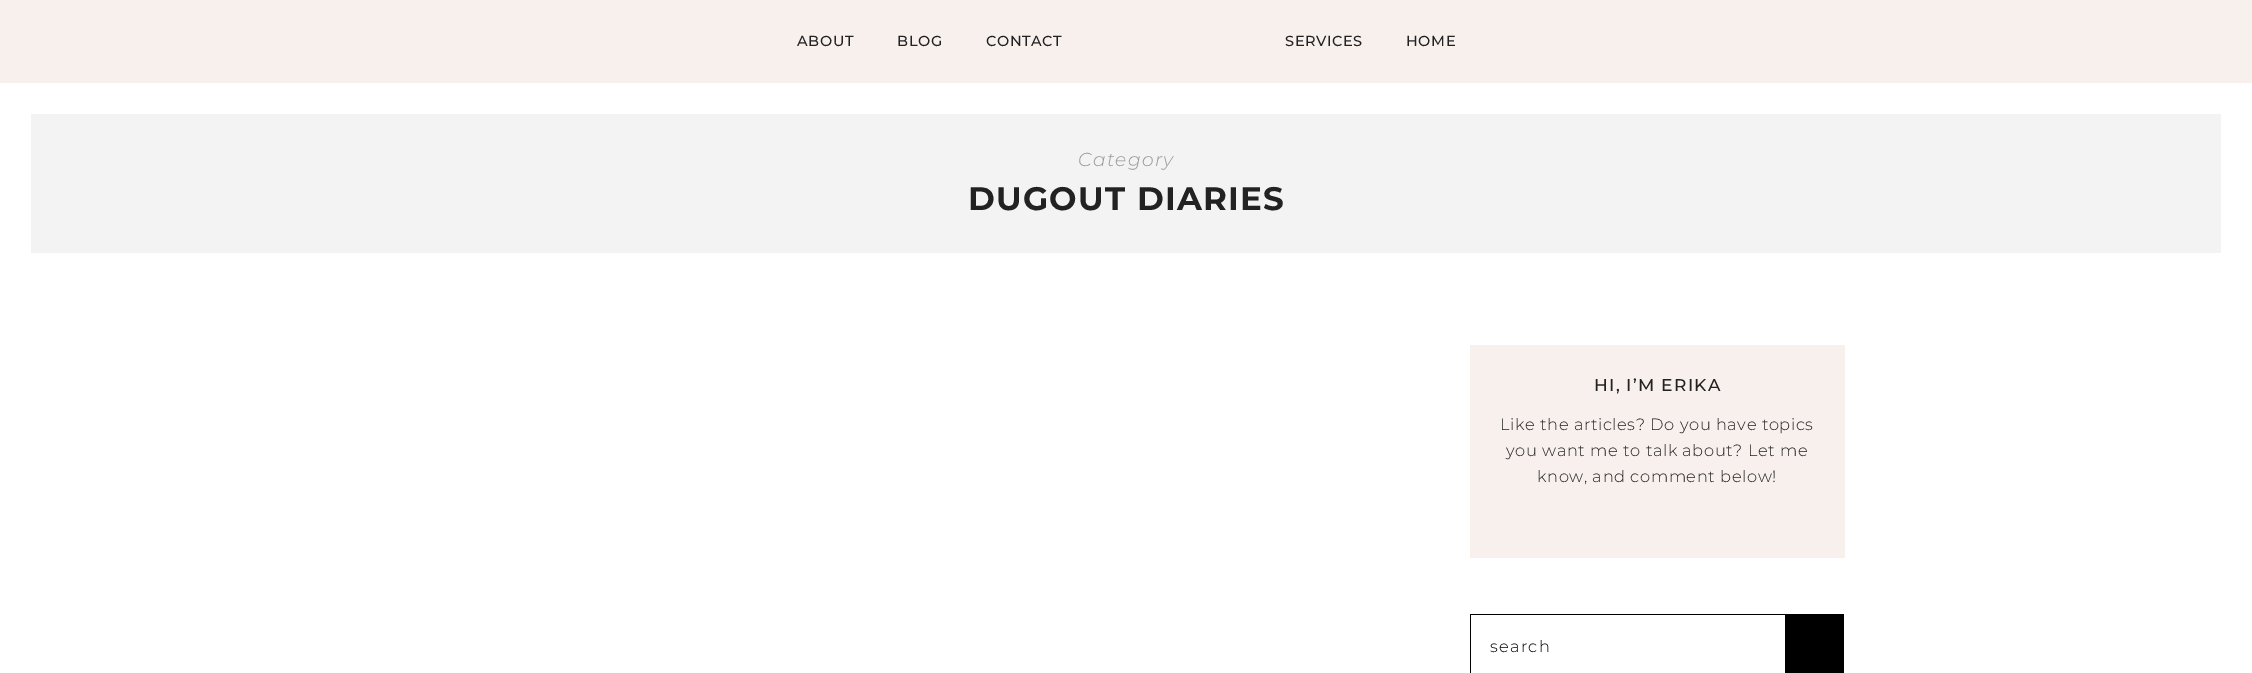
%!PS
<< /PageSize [2252 673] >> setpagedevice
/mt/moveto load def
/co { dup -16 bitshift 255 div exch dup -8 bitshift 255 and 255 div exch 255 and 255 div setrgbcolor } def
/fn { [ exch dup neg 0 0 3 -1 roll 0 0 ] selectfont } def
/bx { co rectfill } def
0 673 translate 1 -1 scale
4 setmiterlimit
0 0 2252 673 16#FFFFFF bx
0 0 2252 83 16#F8F0ED bx
31 114 2190 139 16#F3F3F3 bx
1470 345 375 213 16#F8F0ED bx
1470 614 321 1 16#000000 bx
1470 614 1 59 16#000000 bx
1785 614 59 59 16#000000 bx
/Montserrat-Medium 14.5 fn
16#222222 co
797 46 mt .6 0 (ABOUT) ashow
897 46 mt .6 0 (BLOG) ashow
986 46 mt .6 0 (CONTACT) ashow
1285 46 mt .6 0 (SERVICES) ashow
1406 46 mt .6 0 (HOME) ashow
/Montserrat-ThinItalic 18.75 fn
16#999999 co
1078 166 mt 1.25 0 (Category) ashow
/Montserrat-Bold 32.5 fn
16#222222 co
968 210 mt 1.25 0 (DUGOUT DIARIES) ashow
/Montserrat-Medium 17 fn
1594 391 mt 1.25 0 (HI, I’M ERIKA) ashow
/Montserrat-Light 16.25 fn
1500 430 mt .6 0 (Like the articles? Do you have topics) ashow
1506 456 mt .6 0 (you want me to talk about? Let me) ashow
1537 482 mt .6 0 (know, and comment below!) ashow
16#000000 co
1490 652 mt 1.25 0 (search) ashow
showpage
